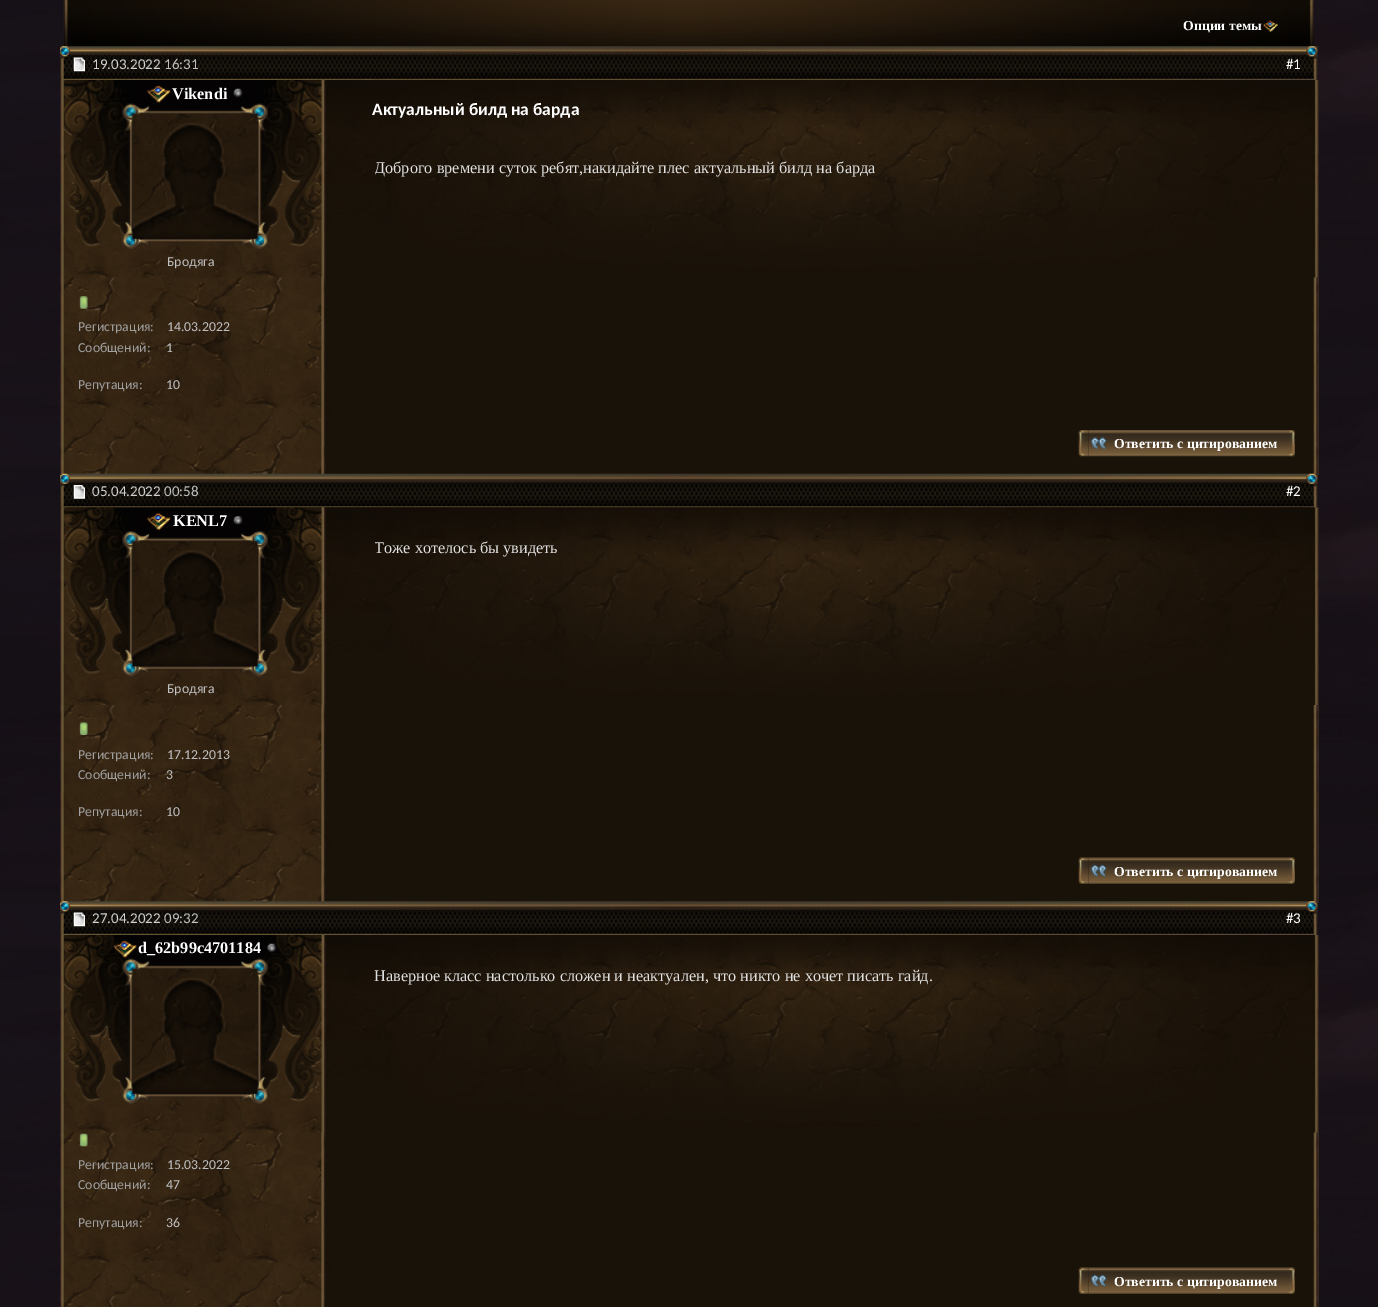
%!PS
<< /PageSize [1378 1307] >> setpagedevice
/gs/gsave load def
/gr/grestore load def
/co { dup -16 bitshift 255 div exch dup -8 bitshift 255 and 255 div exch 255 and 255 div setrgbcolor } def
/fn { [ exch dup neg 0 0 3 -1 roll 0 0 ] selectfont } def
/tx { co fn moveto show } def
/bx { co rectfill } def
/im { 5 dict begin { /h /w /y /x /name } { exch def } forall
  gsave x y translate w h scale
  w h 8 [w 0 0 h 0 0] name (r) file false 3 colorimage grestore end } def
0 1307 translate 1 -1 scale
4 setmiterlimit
0 0 1378 1307 16#FFFFFF bx
(media/1.raw) 0 0 1378 1307 im
(media/2.raw) 63 0 1251 508 im
(media/4.raw) 63 0 1251 47 im
(media/3.raw) 1262 20 16 12 im
(media/5.raw) 60 46 1258 34 im
(media/6.raw) 73 57 12 15 im
(media/7.raw) 60 80 1259 395 im
(media/8.raw) 60 80 1259 198 im
(media/9.raw) 146 85 25 18 im
(media/10.raw) 233 88 10 10 im
(media/11.raw) 132 113 126 126 im
(media/12.raw) 79 296 9 13 im
(media/13.raw) 1088 430 207 27 im
(media/14.raw) 1091 437 16 12 im
(media/15.raw) 1078 430 11 27 im
(media/16.raw) 60 473 1258 35 im
(media/17.raw) 73 485 12 14 im
(media/18.raw) 60 507 1259 396 im
(media/19.raw) 60 507 1259 198 im
(media/20.raw) 146 512 25 19 im
(media/21.raw) 233 516 10 9 im
(media/22.raw) 132 541 126 126 im
(media/23.raw) 79 722 9 13 im
(media/24.raw) 1088 857 207 27 im
(media/25.raw) 1091 864 16 13 im
(media/26.raw) 1078 857 11 27 im
(media/27.raw) 60 901 1258 34 im
(media/6.raw) 73 912 12 15 im
(media/28.raw) 60 935 1259 372 im
(media/29.raw) 60 935 1259 198 im
(media/30.raw) 112 940 25 18 im
(media/31.raw) 267 942 11 12 im
(media/11.raw) 132 968 126 126 im
(media/32.raw) 79 1133 9 14 im
(media/33.raw) 1088 1267 207 27 im
(media/34.raw) 1091 1274 16 13 im
(media/35.raw) 1078 1267 11 27 im
(Опции темы) 1183 30 /LiberationSerif-Bold 13.75 16#FFFFFF tx
(19.03.2022) 92 69 /Carlito-Regular 15 16#D0D0D0 tx
(16:31) 164 69 /Carlito-Regular 15 16#C0C0C0 tx
(#1) 1286 69 /Carlito-Regular 15 16#FFFFFF tx
(Vikendi) 172 99 /LiberationSerif-Bold 16.25 16#FFFFFF tx
(Бродяга) 167 266 /Carlito-Regular 13.75 16#C0C0C0 tx
(Регистрация:) 78 331 /Carlito-Regular 13.75 16#A0A0A0 tx
(14.03.2022) 167 331 /Carlito-Regular 13.75 16#C0C0C0 tx
(Сообщений:) 78 352 /Carlito-Regular 13.75 16#A0A0A0 tx
(1) 166 352 /Carlito-Regular 13.75 16#C0C0C0 tx
(Репутация:) 78 389 /Carlito-Regular 13.75 16#A0A0A0 tx
(10) 166 389 /Carlito-Regular 13.75 16#C0C0C0 tx
(Актуальный билд на барда) 372 115 /Carlito-Bold 17.5 16#FFFFFF tx
gs
375 158 905 20 rectclip
(Доброго времени суток ребят,накидайте плес актуальный билд на барда) 374 173 /LiberationSerif-Regular 16.25 16#E0E0E0 tx
gr
(Ответить с цитированием) 1114 448 /LiberationSerif-Bold 13.75 16#FFFFFF tx
(05.04.2022) 92 496 /Carlito-Regular 15 16#D0D0D0 tx
(00:58) 164 496 /Carlito-Regular 15 16#C0C0C0 tx
(#2) 1286 496 /Carlito-Regular 15 16#FFFFFF tx
(KENL7) 173 526 /LiberationSerif-Bold 16.25 16#FFFFFF tx
(Бродяга) 167 693 /Carlito-Regular 13.75 16#C0C0C0 tx
(Регистрация:) 78 759 /Carlito-Regular 13.75 16#A0A0A0 tx
(17.12.2013) 167 759 /Carlito-Regular 13.75 16#C0C0C0 tx
(Сообщений:) 78 779 /Carlito-Regular 13.75 16#A0A0A0 tx
(3) 166 779 /Carlito-Regular 13.75 16#C0C0C0 tx
(Репутация:) 78 816 /Carlito-Regular 13.75 16#A0A0A0 tx
(10) 166 816 /Carlito-Regular 13.75 16#C0C0C0 tx
gs
375 539 905 20 rectclip
(Тоже хотелось бы увидеть) 374 553 /LiberationSerif-Regular 16.25 16#E0E0E0 tx
gr
(Ответить с цитированием) 1114 876 /LiberationSerif-Bold 13.75 16#FFFFFF tx
(27.04.2022) 92 923 /Carlito-Regular 15 16#D0D0D0 tx
(09:32) 164 923 /Carlito-Regular 15 16#C0C0C0 tx
(#3) 1286 923 /Carlito-Regular 15 16#FFFFFF tx
(d_62b99c4701184) 138 953 /LiberationSerif-Bold 16.25 16#FFFFFF tx
(Регистрация:) 78 1169 /Carlito-Regular 13.75 16#A0A0A0 tx
(15.03.2022) 167 1169 /Carlito-Regular 13.75 16#C0C0C0 tx
(Сообщений:) 78 1189 /Carlito-Regular 13.75 16#A0A0A0 tx
(47) 166 1189 /Carlito-Regular 13.75 16#C0C0C0 tx
(Репутация:) 78 1227 /Carlito-Regular 13.75 16#A0A0A0 tx
(36) 166 1227 /Carlito-Regular 13.75 16#C0C0C0 tx
(Наверное класс настолько сложен и неактуален, что никто не хочет писать гайд.) 374 981 /LiberationSerif-Regular 16.25 16#E0E0E0 tx
(Ответить с цитированием) 1114 1286 /LiberationSerif-Bold 13.75 16#FFFFFF tx
showpage
